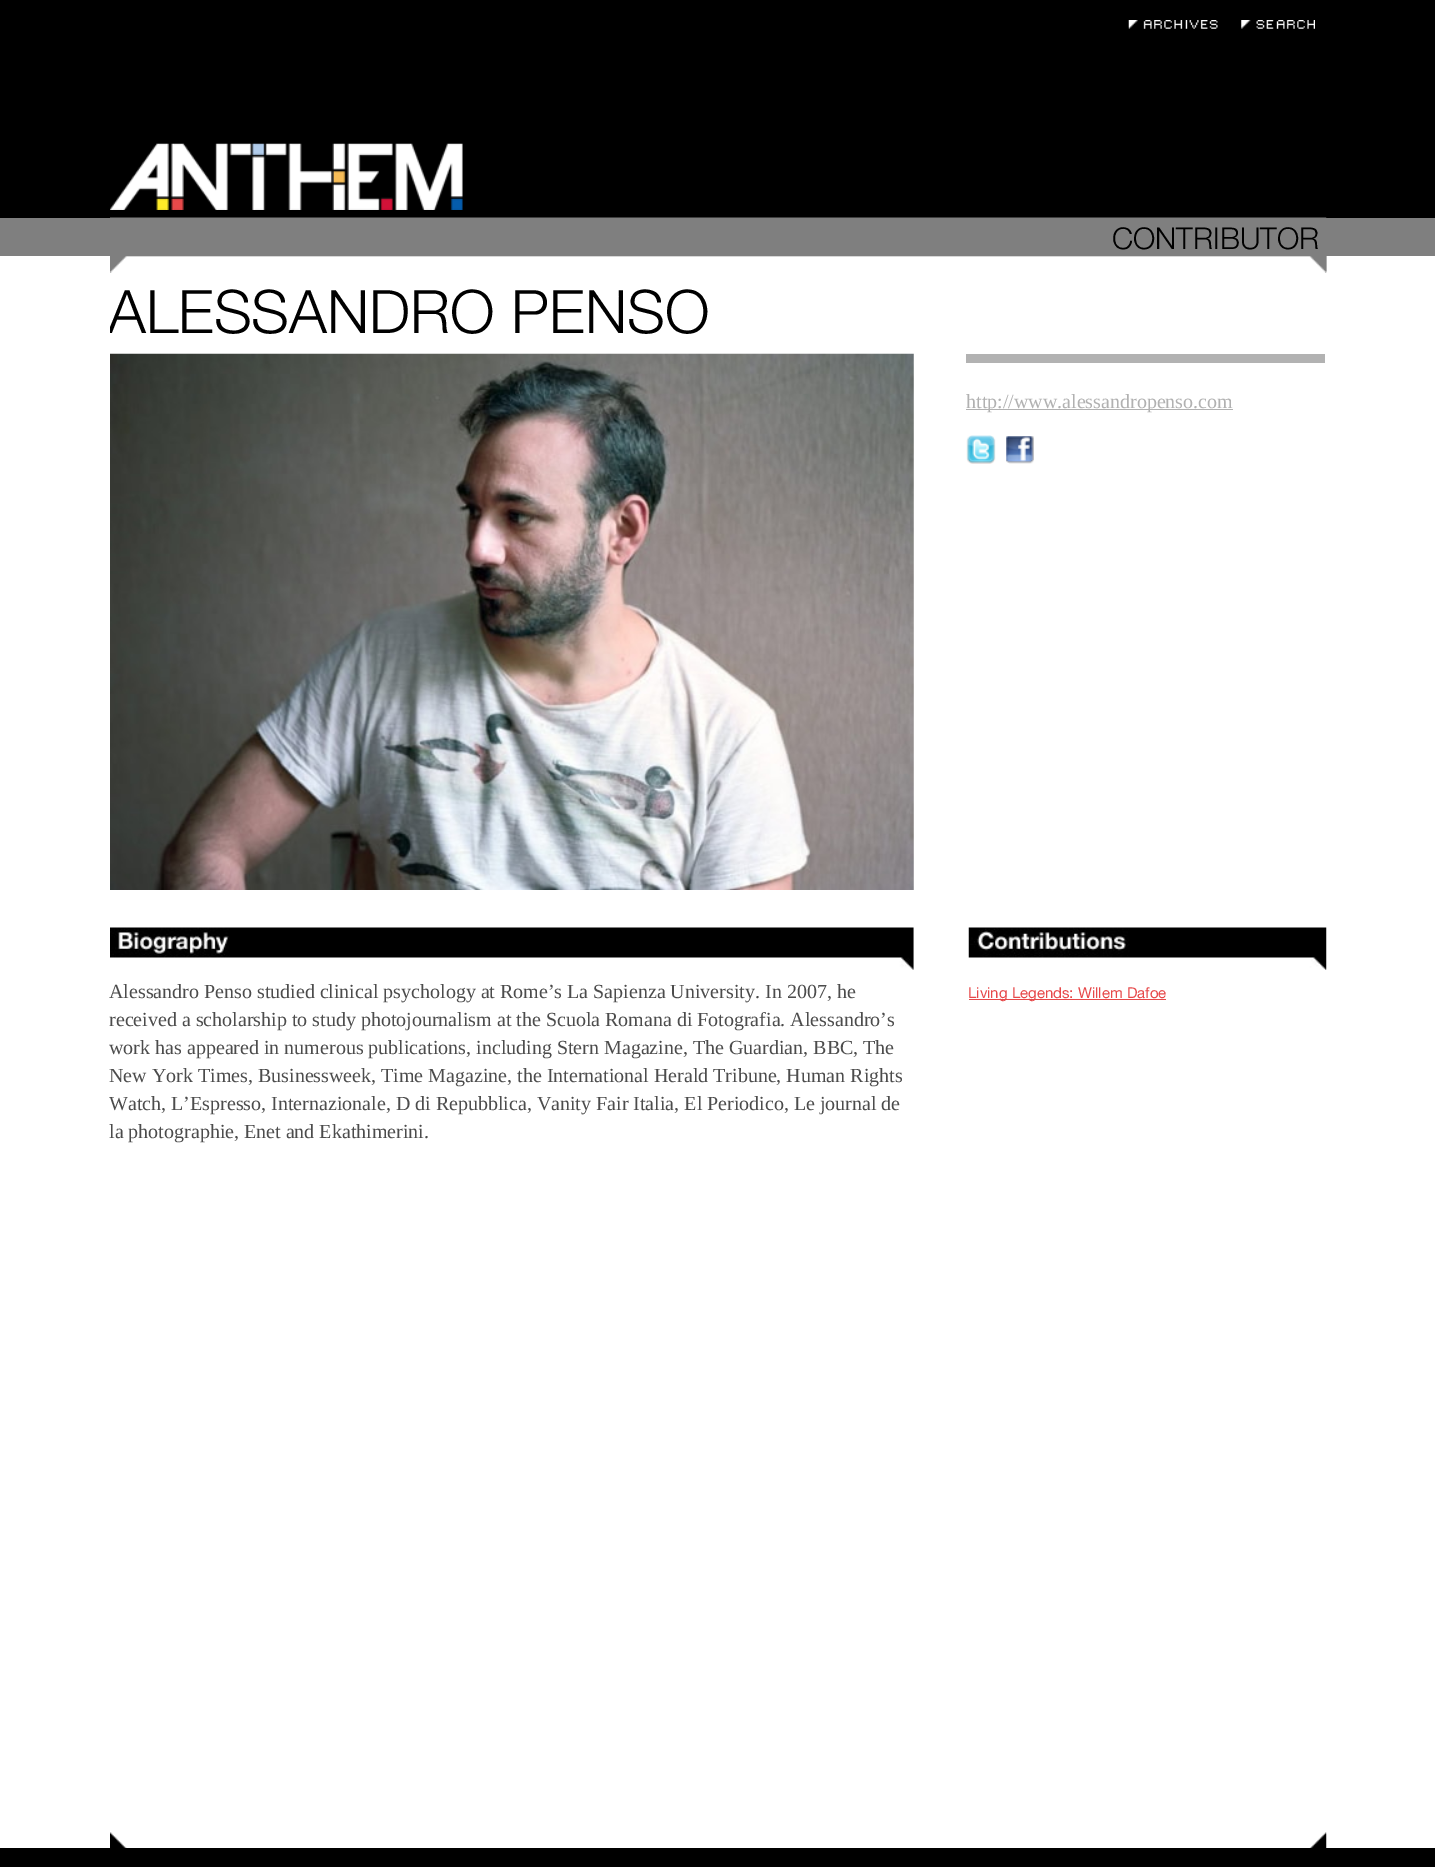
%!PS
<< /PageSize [1435 1867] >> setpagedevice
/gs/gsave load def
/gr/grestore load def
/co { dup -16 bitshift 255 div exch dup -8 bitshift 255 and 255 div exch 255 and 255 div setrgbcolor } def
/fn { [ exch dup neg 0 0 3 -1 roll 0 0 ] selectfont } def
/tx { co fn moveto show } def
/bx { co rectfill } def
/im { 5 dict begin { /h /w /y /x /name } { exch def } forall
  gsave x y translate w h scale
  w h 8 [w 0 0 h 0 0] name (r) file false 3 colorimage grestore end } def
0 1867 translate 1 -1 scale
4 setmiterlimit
0 0 1435 1867 16#FFFFFF bx
0 0 1435 218 16#000000 bx
(media/1.raw) 110 256 1217 17 im
(media/2.raw) 1128 20 90 9 im
(media/3.raw) 1241 20 74 9 im
(media/4.raw) 110 143 353 67 im
0 218 1435 38 16#7F7F7F bx
(media/5.raw) 110 217 1217 56 im
(media/6.raw) 110 353 804 537 im
966 354 359 9 16#B2B2B2 bx
966 409 267 1 16#B1B1B1 bx
(media/7.raw) 966 435 30 29 im
(media/8.raw) 1006 436 28 28 im
(media/9.raw) 110 927 804 43 im
(media/10.raw) 968 927 359 43 im
969 999 197 1 16#E7494A bx
(media/11.raw) 110 1832 1217 16 im
0 1848 1435 19 16#000000 bx
(CONTRIBUTOR) 1112 249 /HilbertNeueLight-Light 30 16#000000 tx
gs
110 281 1216 60 rectclip
(ALESSANDRO PENSO) 108 333 /HilbertNeueLight-Light 60 16#000000 tx
gr
(http://www.alessandropenso.com) 966 408 /LiberationSerif-Regular 20 16#B1B1B1 tx
(Alessandro Penso studied clinical psychology at Rome’s La Sapienza University. In 2007, he) 109 998 /LiberationSerif-Regular 20 16#4C4C4C tx
(received a scholarship to study photojournalism at the Scuola Romana di Fotografia. Alessandro’s) 109 1026 /LiberationSerif-Regular 20 16#4C4C4C tx
(work has appeared in numerous publications, including Stern Magazine, The Guardian, BBC, The) 109 1054 /LiberationSerif-Regular 20 16#4C4C4C tx
(New York Times, Businessweek, Time Magazine, the International Herald Tribune, Human Rights) 109 1082 /LiberationSerif-Regular 20 16#4C4C4C tx
(Watch, L’Espresso, Internazionale, D di Repubblica, Vanity Fair Italia, El Periodico, Le journal de) 109 1110 /LiberationSerif-Regular 20 16#4C4C4C tx
(la photographie, Enet and Ekathimerini.) 109 1138 /LiberationSerif-Regular 20 16#4C4C4C tx
(Living Legends: Willem Dafoe) 968 998 /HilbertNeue-Medium 15 16#E7494A tx
showpage
